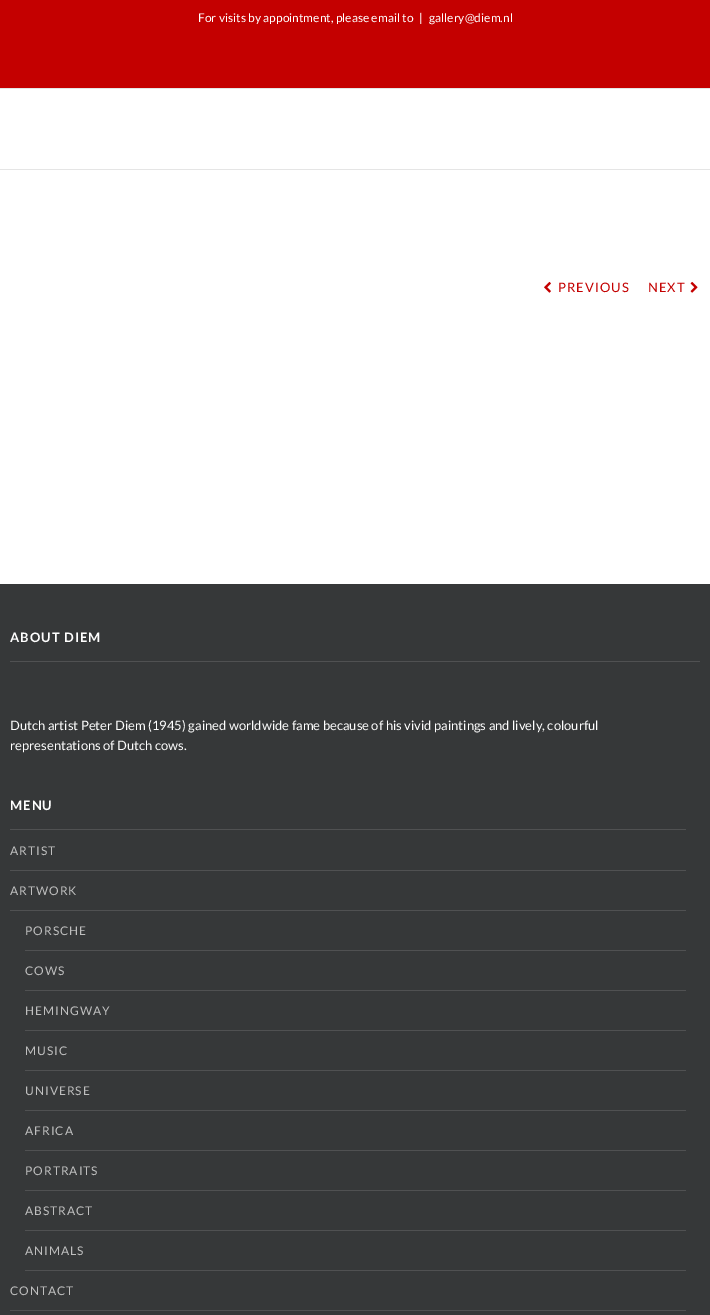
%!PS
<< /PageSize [710 1315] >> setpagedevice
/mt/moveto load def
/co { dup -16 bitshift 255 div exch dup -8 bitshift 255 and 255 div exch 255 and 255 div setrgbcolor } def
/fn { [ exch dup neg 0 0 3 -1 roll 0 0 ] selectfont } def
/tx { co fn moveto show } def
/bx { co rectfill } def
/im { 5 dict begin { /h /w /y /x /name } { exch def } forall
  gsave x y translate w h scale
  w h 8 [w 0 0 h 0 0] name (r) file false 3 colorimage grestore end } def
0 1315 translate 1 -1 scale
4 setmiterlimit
0 0 710 1315 16#FFFFFF bx
0 0 710 88 16#C40000 bx
0 88 710 1 16#E5E5E5 bx
0 169 710 1 16#E5E5E5 bx
(media/1.raw) 544 281 7 12 im
(media/2.raw) 690 281 8 12 im
0 584 710 731 16#363839 bx
10 661 690 1 16#505152 bx
10 829 676 1 16#505152 bx
10 870 676 1 16#505152 bx
10 910 676 1 16#505152 bx
25 950 661 1 16#505152 bx
25 990 661 1 16#505152 bx
25 1030 661 1 16#505152 bx
25 1070 661 1 16#505152 bx
25 1110 661 1 16#505152 bx
25 1150 661 1 16#505152 bx
25 1190 661 1 16#505152 bx
25 1230 661 1 16#505152 bx
25 1270 661 1 16#505152 bx
10 1310 676 1 16#505152 bx
(For visits by appointment, please email to) 198 22 /Lato-Regular 12 16#FFFFFF tx
(|) 419 22 /Lato-Regular 12 16#FFFFFF tx
(gallery@diem.nl) 429 22 /Lato-Regular 12 16#FFFFFF tx
/Lato-Regular 13 fn
16#C40000 co
558 292 mt 1 0 (PREVIOUS) ashow
648 292 mt 1 0 (NEXT) ashow
/Lato-Bold 13 fn
16#FFFFFF co
10 642 mt 1 0 (ABOUT DIEM) ashow
(Dutch artist Peter Diem \(1945\) gained worldwide fame because of his vivid paintings and lively, colourful) 10 730 /Lato-Regular 13 16#FFFFFF tx
(representations of Dutch cows.) 10 750 /Lato-Regular 13 16#FFFFFF tx
/Lato-Bold 13 fn
10 810 mt 1 0 (MENU) ashow
/Lato-Regular 12 fn
16#BFBFBF co
10 855 mt 1 0 (ARTIST) ashow
10 895 mt 1 0 (ARTWORK) ashow
25 935 mt 1 0 (PORSCHE) ashow
25 975 mt 1 0 (COWS) ashow
25 1015 mt 1 0 (HEMINGWAY) ashow
25 1055 mt 1 0 (MUSIC) ashow
25 1095 mt 1 0 (UNIVERSE) ashow
25 1135 mt 1 0 (AFRICA) ashow
25 1175 mt 1 0 (PORTRAITS) ashow
25 1215 mt 1 0 (ABSTRACT) ashow
25 1255 mt 1 0 (ANIMALS) ashow
10 1295 mt 1 0 (CONTACT) ashow
showpage
